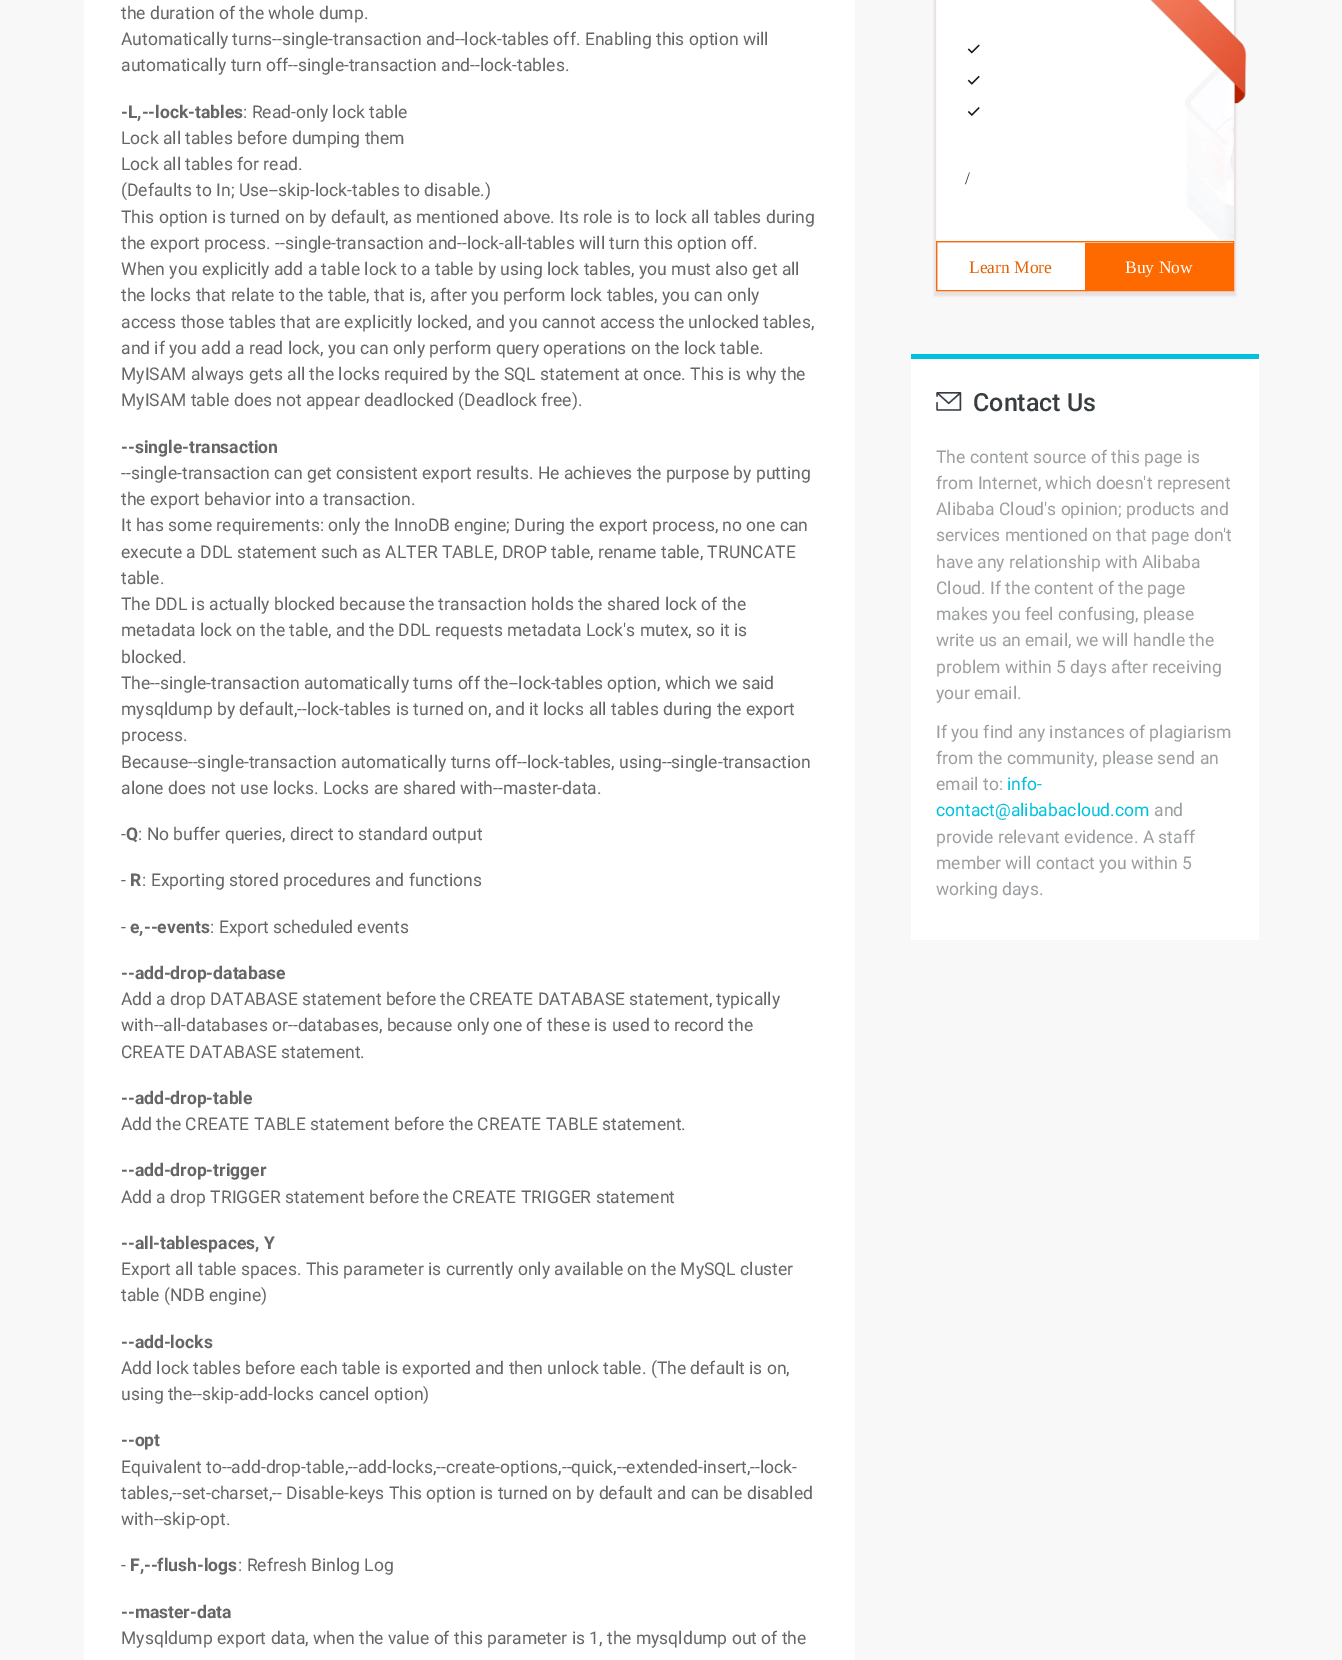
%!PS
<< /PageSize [1342 1660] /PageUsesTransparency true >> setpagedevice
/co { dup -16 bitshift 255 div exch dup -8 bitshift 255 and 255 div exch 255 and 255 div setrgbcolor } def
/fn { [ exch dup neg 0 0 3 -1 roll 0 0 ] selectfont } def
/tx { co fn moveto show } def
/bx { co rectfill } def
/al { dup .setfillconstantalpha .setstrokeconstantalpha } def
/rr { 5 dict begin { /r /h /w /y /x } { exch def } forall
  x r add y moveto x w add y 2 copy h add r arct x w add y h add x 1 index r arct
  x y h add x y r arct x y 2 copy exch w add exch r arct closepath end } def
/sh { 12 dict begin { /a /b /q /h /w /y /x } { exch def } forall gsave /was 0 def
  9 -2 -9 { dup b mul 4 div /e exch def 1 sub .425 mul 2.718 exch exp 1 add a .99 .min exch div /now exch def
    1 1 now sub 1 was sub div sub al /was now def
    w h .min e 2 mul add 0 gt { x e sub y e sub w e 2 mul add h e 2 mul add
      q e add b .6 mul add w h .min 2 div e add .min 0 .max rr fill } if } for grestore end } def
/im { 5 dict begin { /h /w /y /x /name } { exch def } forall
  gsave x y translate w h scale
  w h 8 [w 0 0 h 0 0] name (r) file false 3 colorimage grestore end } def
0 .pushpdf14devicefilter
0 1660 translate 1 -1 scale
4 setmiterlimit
0 0 1342 1660 16#F8F8F8 bx
84 0 771 1660 16#FFFFFF bx
16#E7DFDF co
934 -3 302 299 0 1 1 sh
(media/1.raw) 936 0 298 241 im
(media/2.raw) 967 44 13 10 im
(media/3.raw) 967 75 13 10 im
(media/4.raw) 967 107 13 9 im
(media/5.raw) 1150 0 97 104 im
16#FF6A00 co
936.5 241.5 297 49 rectstroke
938 243 147 47 16#FFFFFF bx
1085 243 148 47 16#FF6A00 bx
911 359 348 581 16#FFFFFF bx
911 354 348 5 16#00C1DE bx
(media/6.raw) 936 392 26 19 im
(the duration of the whole dump.) 121 19 /Roboto-Regular 17.5 16#666666 tx
(Automatically turns--single-transaction and--lock-tables off. Enabling this option will) 121 45 /Roboto-Regular 17.5 16#666666 tx
(automatically turn off--single-transaction and--lock-tables.) 121 71 /Roboto-Regular 17.5 16#666666 tx
(-L,--lock-tables) 121 118 /Roboto-Bold 17.5 16#666666 tx
(: Read-only lock table) 243 118 /Roboto-Regular 17.5 16#666666 tx
(Lock all tables before dumping them) 121 144 /Roboto-Regular 17.5 16#666666 tx
(Lock all tables for read.) 121 170 /Roboto-Regular 17.5 16#666666 tx
(\(Defaults to In; Use--skip-lock-tables to disable.\)) 121 196 /Roboto-Regular 17.5 16#666666 tx
(This option is turned on by default, as mentioned above. Its role is to lock all tables during) 121 223 /Roboto-Regular 17.5 16#666666 tx
(the export process. --single-transaction and--lock-all-tables will turn this option off.) 121 249 /Roboto-Regular 17.5 16#666666 tx
(When you explicitly add a table lock to a table by using lock tables, you must also get all) 121 275 /Roboto-Regular 17.5 16#666666 tx
(the locks that relate to the table, that is, after you perform lock tables, you can only) 121 301 /Roboto-Regular 17.5 16#666666 tx
(access those tables that are explicitly locked, and you cannot access the unlocked tables,) 121 328 /Roboto-Regular 17.5 16#666666 tx
(and if you add a read lock, you can only perform query operations on the lock table.) 121 354 /Roboto-Regular 17.5 16#666666 tx
(MyISAM always gets all the locks required by the SQL statement at once. This is why the) 121 380 /Roboto-Regular 17.5 16#666666 tx
(MyISAM table does not appear deadlocked \(Deadlock free\).) 121 406 /Roboto-Regular 17.5 16#666666 tx
(--single-transaction) 121 453 /Roboto-Bold 17.5 16#666666 tx
(--single-transaction can get consistent export results. He achieves the purpose by putting) 121 479 /Roboto-Regular 17.5 16#666666 tx
(the export behavior into a transaction.) 121 505 /Roboto-Regular 17.5 16#666666 tx
(It has some requirements: only the InnoDB engine; During the export process, no one can) 121 531 /Roboto-Regular 17.5 16#666666 tx
(execute a DDL statement such as ALTER TABLE, DROP table, rename table, TRUNCATE) 121 558 /Roboto-Regular 17.5 16#666666 tx
(table.) 121 584 /Roboto-Regular 17.5 16#666666 tx
(The DDL is actually blocked because the transaction holds the shared lock of the) 121 610 /Roboto-Regular 17.5 16#666666 tx
(metadata lock on the table, and the DDL requests metadata Lock's mutex, so it is) 121 636 /Roboto-Regular 17.5 16#666666 tx
(blocked.) 121 663 /Roboto-Regular 17.5 16#666666 tx
(The--single-transaction automatically turns off the--lock-tables option, which we said) 121 689 /Roboto-Regular 17.5 16#666666 tx
(mysqldump by default,--lock-tables is turned on, and it locks all tables during the export) 121 715 /Roboto-Regular 17.5 16#666666 tx
(process.) 121 741 /Roboto-Regular 17.5 16#666666 tx
(Because--single-transaction automatically turns off--lock-tables, using--single-transaction) 121 768 /Roboto-Regular 17.5 16#666666 tx
(alone does not use locks. Locks are shared with--master-data.) 121 794 /Roboto-Regular 17.5 16#666666 tx
(-) 121 840 /Roboto-Regular 17.5 16#666666 tx
(Q) 126 840 /Roboto-Bold 17.5 16#666666 tx
(: No buffer queries, direct to standard output) 138 840 /Roboto-Regular 17.5 16#666666 tx
(-) 121 886 /Roboto-Regular 17.5 16#666666 tx
(R) 130 886 /Roboto-Bold 17.5 16#666666 tx
(: Exporting stored procedures and functions) 142 886 /Roboto-Regular 17.5 16#666666 tx
(-) 121 933 /Roboto-Regular 17.5 16#666666 tx
(e,--events) 130 933 /Roboto-Bold 17.5 16#666666 tx
(: Export scheduled events) 210 933 /Roboto-Regular 17.5 16#666666 tx
(--add-drop-database) 121 979 /Roboto-Bold 17.5 16#666666 tx
(Add a drop DATABASE statement before the CREATE DATABASE statement, typically) 121 1005 /Roboto-Regular 17.5 16#666666 tx
(with--all-databases or--databases, because only one of these is used to record the) 121 1031 /Roboto-Regular 17.5 16#666666 tx
(CREATE DATABASE statement.) 121 1058 /Roboto-Regular 17.5 16#666666 tx
(--add-drop-table) 121 1104 /Roboto-Bold 17.5 16#666666 tx
(Add the CREATE TABLE statement before the CREATE TABLE statement.) 121 1130 /Roboto-Regular 17.5 16#666666 tx
(--add-drop-trigger) 121 1176 /Roboto-Bold 17.5 16#666666 tx
(Add a drop TRIGGER statement before the CREATE TRIGGER statement) 121 1203 /Roboto-Regular 17.5 16#666666 tx
(--all-tablespaces, Y) 121 1249 /Roboto-Bold 17.5 16#666666 tx
(Export all table spaces. This parameter is currently only available on the MySQL cluster) 121 1275 /Roboto-Regular 17.5 16#666666 tx
(table \(NDB engine\)) 121 1301 /Roboto-Regular 17.5 16#666666 tx
(--add-locks) 121 1348 /Roboto-Bold 17.5 16#666666 tx
(Add lock tables before each table is exported and then unlock table. \(The default is on,) 121 1374 /Roboto-Regular 17.5 16#666666 tx
(using the--skip-add-locks cancel option\)) 121 1400 /Roboto-Regular 17.5 16#666666 tx
(--opt) 121 1446 /Roboto-Bold 17.5 16#666666 tx
(Equivalent to--add-drop-table,--add-locks,--create-options,--quick,--extended-insert,--lock-) 121 1473 /Roboto-Regular 17.5 16#666666 tx
(tables,--set-charset,-- Disable-keys This option is turned on by default and can be disabled) 121 1499 /Roboto-Regular 17.5 16#666666 tx
(with--skip-opt.) 121 1525 /Roboto-Regular 17.5 16#666666 tx
(-) 121 1571 /Roboto-Regular 17.5 16#666666 tx
(F,--flush-logs) 130 1571 /Roboto-Bold 17.5 16#666666 tx
(: Refresh Binlog Log) 238 1571 /Roboto-Regular 17.5 16#666666 tx
(--master-data) 121 1618 /Roboto-Bold 17.5 16#666666 tx
(Mysqldump export data, when the value of this parameter is 1, the mysqldump out of the) 121 1644 /Roboto-Regular 17.5 16#666666 tx
(/) 965 184 /LiberationSerif-Regular 17.5 16#333333 tx
(Learn More) 969 273 /LiberationSerif-Regular 17.5 16#E65F00 tx
(Buy Now) 1125 273 /LiberationSerif-Regular 17.5 16#FFFFFF tx
(Contact Us) 973 411 /Roboto-Medium 25 16#373D41 tx
(The content source of this page is) 936 463 /Roboto-Regular 17.5 16#9B9EA0 tx
(from Internet, which doesn't represent) 936 489 /Roboto-Regular 17.5 16#9B9EA0 tx
(Alibaba Cloud's opinion; products and) 936 515 /Roboto-Regular 17.5 16#9B9EA0 tx
(services mentioned on that page don't) 936 541 /Roboto-Regular 17.5 16#9B9EA0 tx
(have any relationship with Alibaba) 936 568 /Roboto-Regular 17.5 16#9B9EA0 tx
(Cloud. If the content of the page) 936 594 /Roboto-Regular 17.5 16#9B9EA0 tx
(makes you feel confusing, please) 936 620 /Roboto-Regular 17.5 16#9B9EA0 tx
(write us an email, we will handle the) 936 646 /Roboto-Regular 17.5 16#9B9EA0 tx
(problem within 5 days after receiving) 936 673 /Roboto-Regular 17.5 16#9B9EA0 tx
(your email.) 936 699 /Roboto-Regular 17.5 16#9B9EA0 tx
(If you find any instances of plagiarism) 936 738 /Roboto-Regular 17.5 16#9B9EA0 tx
(from the community, please send an) 936 764 /Roboto-Regular 17.5 16#9B9EA0 tx
(email to:) 936 790 /Roboto-Regular 17.5 16#9B9EA0 tx
(info-) 1007 790 /Roboto-Regular 17.5 16#00C1DE tx
(contact@alibabacloud.com) 936 816 /Roboto-Regular 17.5 16#00C1DE tx
(and) 1154 816 /Roboto-Regular 17.5 16#9B9EA0 tx
(provide relevant evidence. A staff) 936 843 /Roboto-Regular 17.5 16#9B9EA0 tx
(member will contact you within 5) 936 869 /Roboto-Regular 17.5 16#9B9EA0 tx
(working days.) 936 895 /Roboto-Regular 17.5 16#9B9EA0 tx
.poppdf14devicefilter showpage
